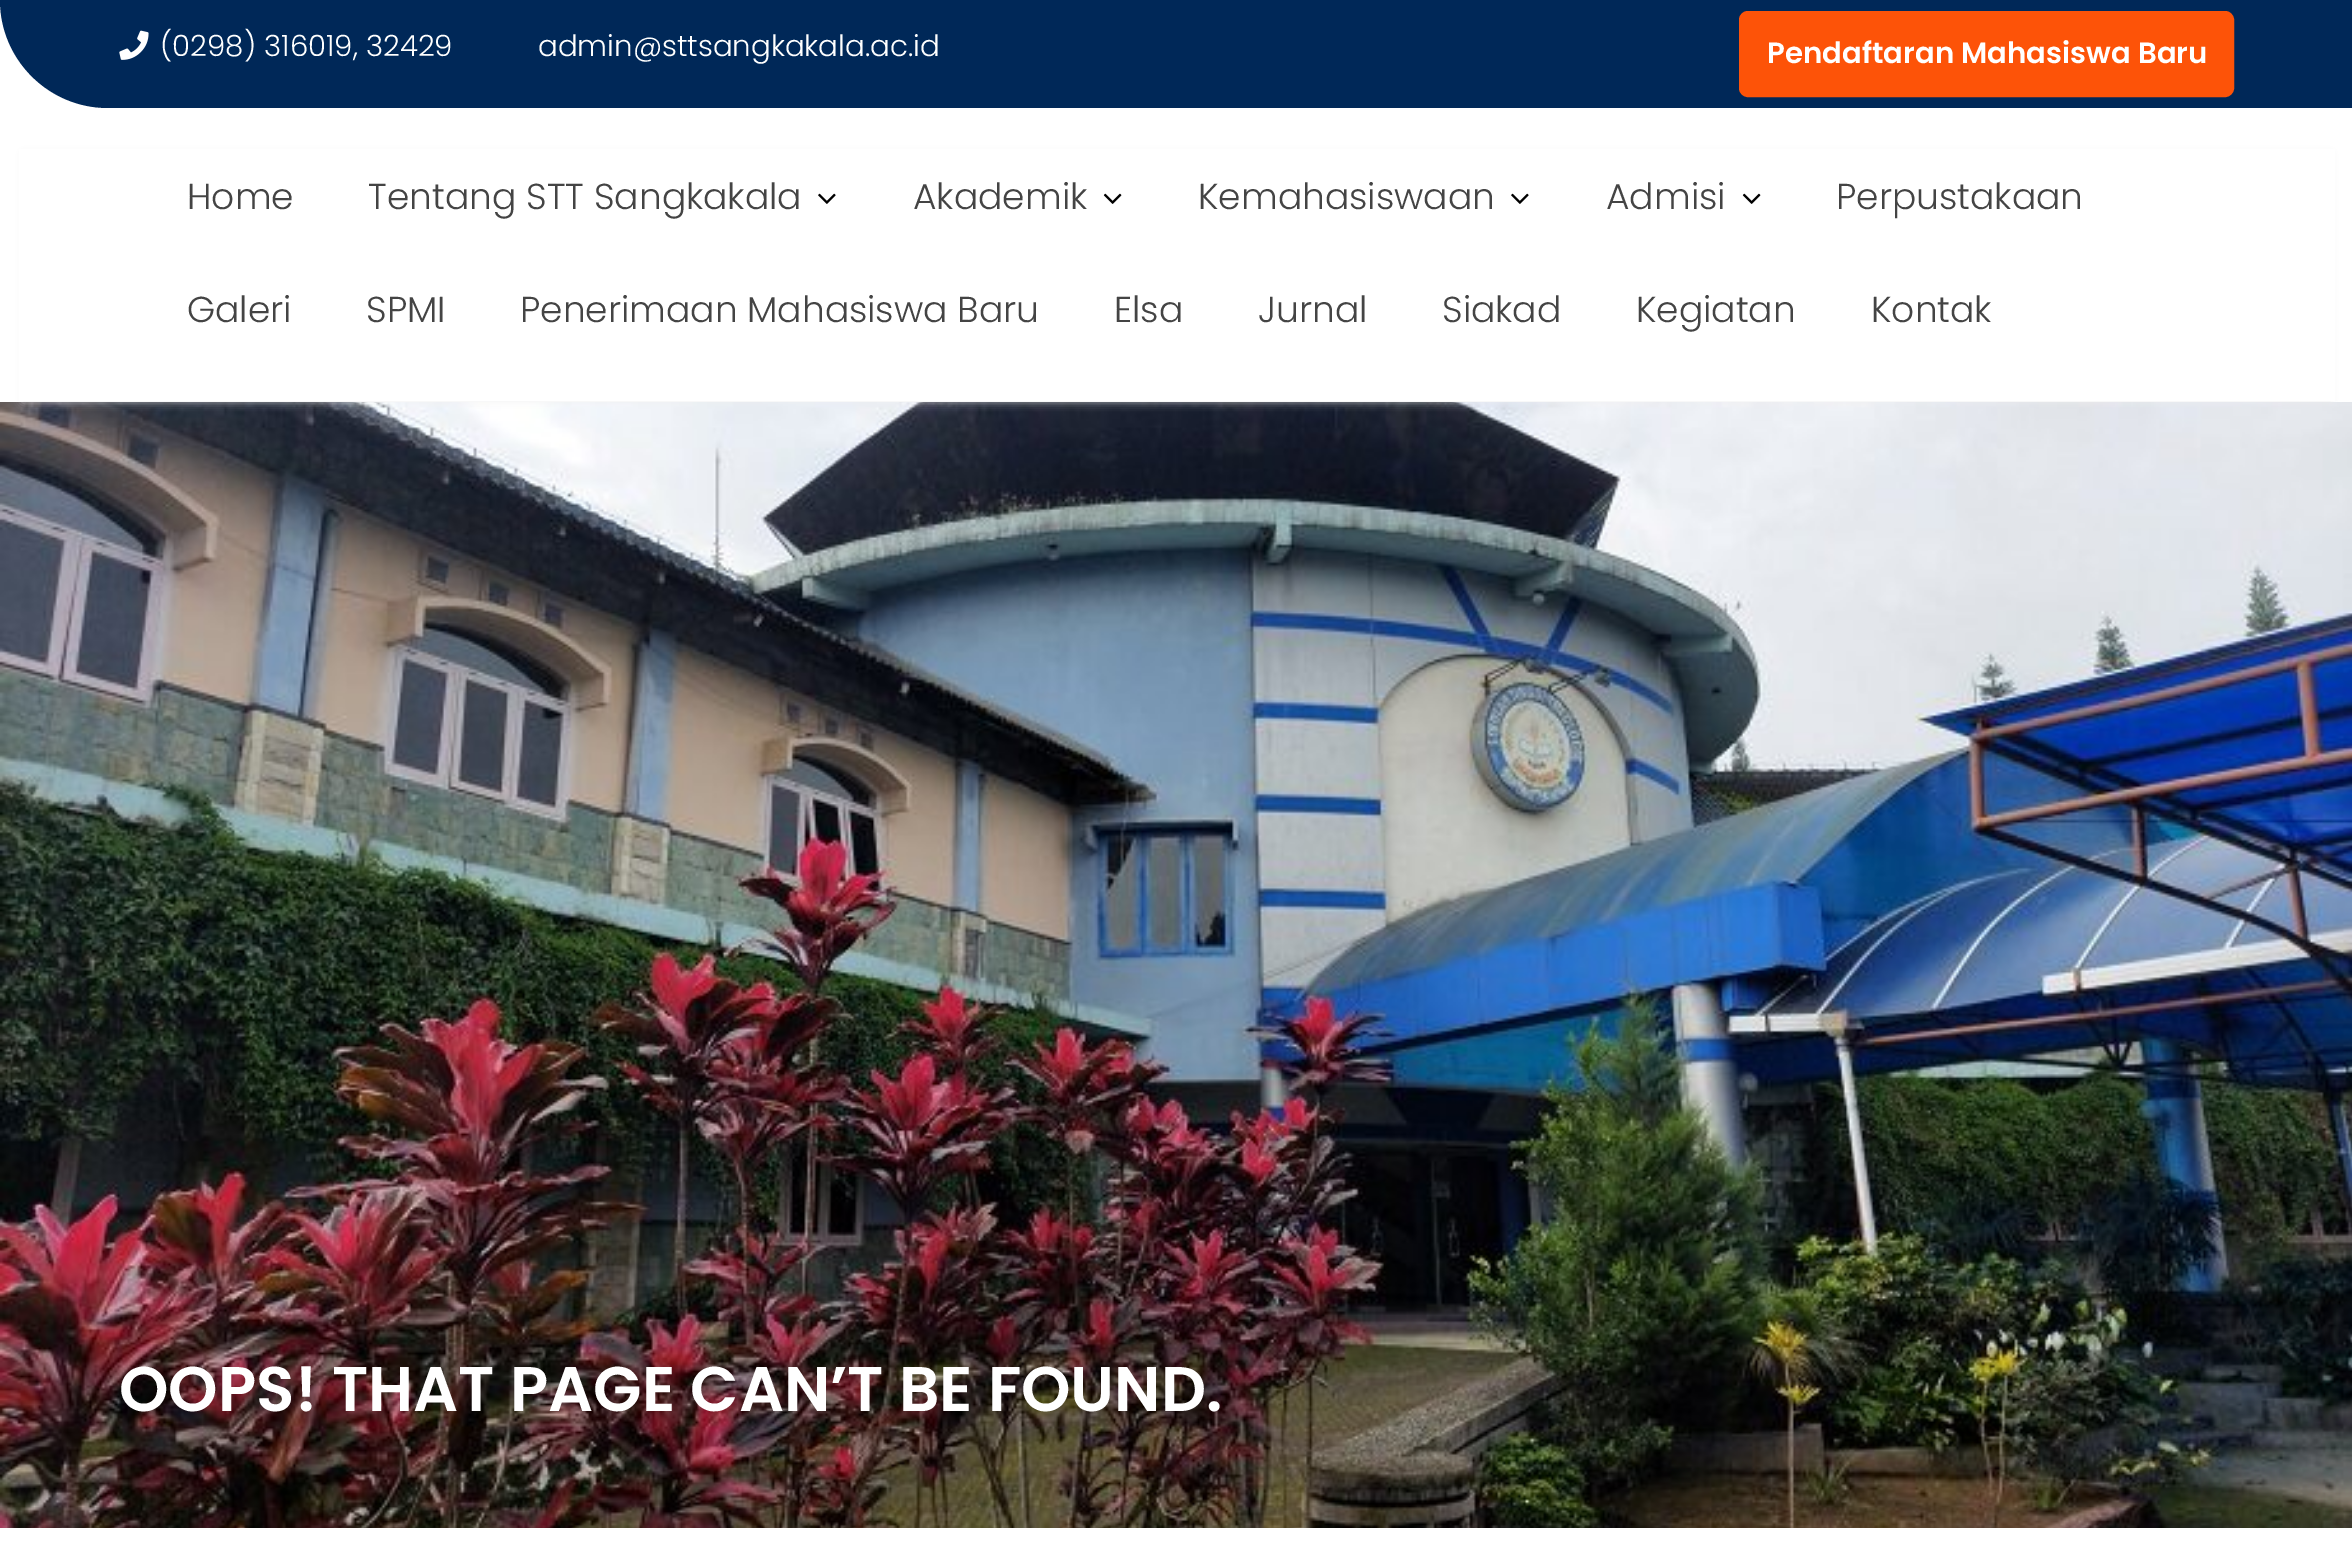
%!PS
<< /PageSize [2352 1566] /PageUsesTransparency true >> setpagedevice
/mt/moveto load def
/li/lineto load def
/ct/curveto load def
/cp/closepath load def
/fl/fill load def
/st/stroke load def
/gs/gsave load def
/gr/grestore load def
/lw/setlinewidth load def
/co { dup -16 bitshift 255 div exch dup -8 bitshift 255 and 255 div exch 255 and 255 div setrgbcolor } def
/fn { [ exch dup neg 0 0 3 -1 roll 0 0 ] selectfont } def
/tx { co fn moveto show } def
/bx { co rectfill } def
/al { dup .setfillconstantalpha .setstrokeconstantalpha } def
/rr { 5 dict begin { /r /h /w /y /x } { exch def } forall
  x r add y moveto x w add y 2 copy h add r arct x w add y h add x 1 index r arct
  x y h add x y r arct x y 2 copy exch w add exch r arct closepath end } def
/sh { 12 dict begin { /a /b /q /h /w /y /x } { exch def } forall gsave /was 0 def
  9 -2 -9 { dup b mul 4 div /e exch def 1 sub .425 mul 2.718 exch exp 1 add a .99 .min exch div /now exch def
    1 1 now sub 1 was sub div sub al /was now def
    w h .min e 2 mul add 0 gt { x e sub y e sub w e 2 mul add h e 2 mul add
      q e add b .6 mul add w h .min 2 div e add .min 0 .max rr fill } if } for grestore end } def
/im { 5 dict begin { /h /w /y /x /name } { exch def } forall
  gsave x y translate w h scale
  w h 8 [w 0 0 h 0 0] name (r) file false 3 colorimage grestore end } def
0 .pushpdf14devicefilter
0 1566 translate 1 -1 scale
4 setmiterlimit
0 0 2352 1566 16#FFFFFF bx
16#002858 co
0 0 mt 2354 0 li 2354 108 li 108 108 li 48.5 108 0 59.5 0 0 ct cp fl
(media/1.raw) 119 30 30 30 im
16#FD5308 co
1741.5 13.5 490 81 6.5 rr gs fl gr
5 lw
st
(media/4.raw) 0 402 2352 1126 im
16#EEEEEE co
23 153 2308 248 0 4.5 .9 sh
19 149 2316 252 16#FFFFFF bx
(media/2.raw) 818 193 18 11 im
(media/3.raw) 1103 193 19 11 im
(media/2.raw) 1511 193 18 11 im
(media/3.raw) 1742 193 19 11 im
(\(0298\) 316019, 32429) 160 56 /Poppins-Light 29.25 16#FFFFFF tx
(admin@sttsangkakala.ac.id) 538 56 /Poppins-Light 29.25 16#FFFFFF tx
(Pendaftaran Mahasiswa Baru) 1767 63 /Poppins-SemiBold 29.25 16#FFFFFF tx
(Home) 187 209 /Poppins-Light 36 16#444444 tx
(Tentang STT Sangkakala) 368 209 /Poppins-Light 36 16#444444 tx
(Akademik) 913 209 /Poppins-Light 36 16#444444 tx
(Kemahasiswaan) 1198 209 /Poppins-Light 36 16#444444 tx
(Admisi) 1606 209 /Poppins-Light 36 16#444444 tx
(Perpustakaan) 1836 209 /Poppins-Light 36 16#444444 tx
(Galeri) 187 322 /Poppins-Light 36 16#444444 tx
(SPMI) 366 322 /Poppins-Light 36 16#444444 tx
(Penerimaan Mahasiswa Baru) 520 322 /Poppins-Light 36 16#444444 tx
(Elsa) 1114 322 /Poppins-Light 36 16#444444 tx
(Jurnal) 1258 322 /Poppins-Light 36 16#444444 tx
(Siakad) 1442 322 /Poppins-Light 36 16#444444 tx
(Kegiatan) 1636 322 /Poppins-Light 36 16#444444 tx
(Kontak) 1871 322 /Poppins-Light 36 16#444444 tx
(OOPS! THAT PAGE CAN’T BE FOUND.) 119 1411 /Poppins-SemiBold 63 16#FFFFFF tx
.poppdf14devicefilter showpage
